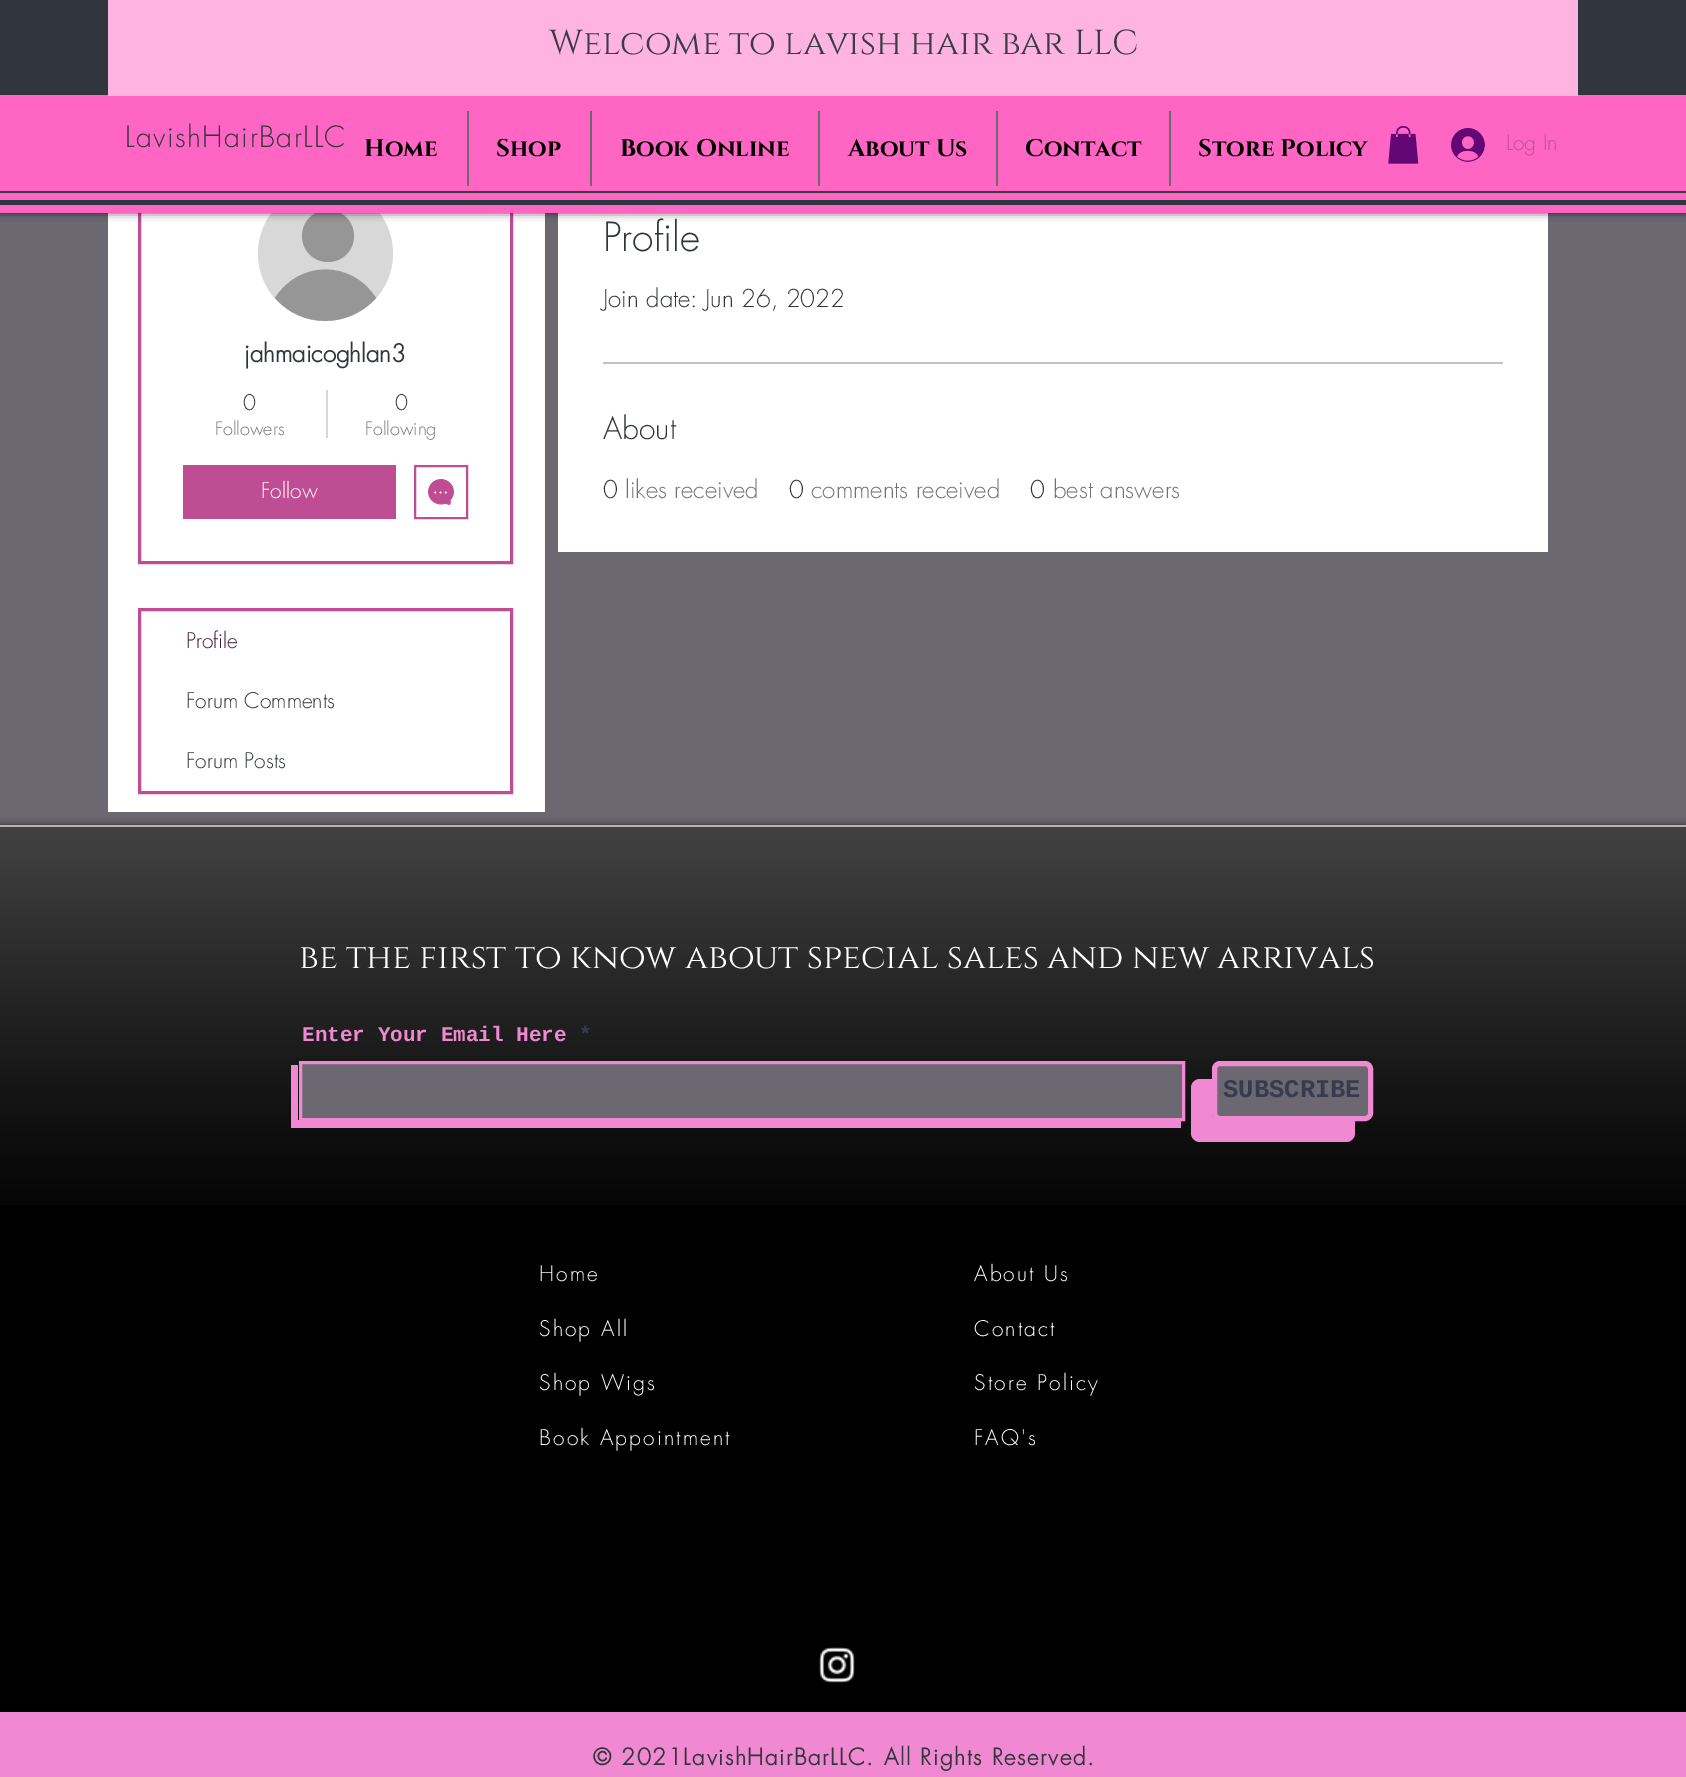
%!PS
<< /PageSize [1686 1777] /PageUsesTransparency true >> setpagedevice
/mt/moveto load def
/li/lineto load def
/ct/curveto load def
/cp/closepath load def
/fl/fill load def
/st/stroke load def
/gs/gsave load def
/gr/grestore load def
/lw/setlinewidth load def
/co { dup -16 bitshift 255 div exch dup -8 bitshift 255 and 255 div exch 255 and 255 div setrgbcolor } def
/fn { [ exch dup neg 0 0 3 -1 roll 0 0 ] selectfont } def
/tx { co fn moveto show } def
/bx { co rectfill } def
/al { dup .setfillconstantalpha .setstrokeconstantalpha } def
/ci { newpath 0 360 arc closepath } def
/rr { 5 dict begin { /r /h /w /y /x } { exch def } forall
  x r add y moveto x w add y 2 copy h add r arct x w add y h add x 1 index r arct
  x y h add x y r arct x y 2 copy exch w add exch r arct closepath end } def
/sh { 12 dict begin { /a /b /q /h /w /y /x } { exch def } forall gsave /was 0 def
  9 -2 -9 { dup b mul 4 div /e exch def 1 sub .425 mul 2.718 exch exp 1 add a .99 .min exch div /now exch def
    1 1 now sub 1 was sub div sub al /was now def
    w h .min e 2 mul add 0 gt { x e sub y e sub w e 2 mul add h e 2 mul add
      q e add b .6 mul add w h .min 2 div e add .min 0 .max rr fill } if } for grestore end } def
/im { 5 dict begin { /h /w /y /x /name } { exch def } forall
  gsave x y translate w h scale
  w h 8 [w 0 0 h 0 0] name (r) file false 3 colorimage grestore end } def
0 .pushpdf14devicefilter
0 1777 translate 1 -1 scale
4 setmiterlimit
0 0 1686 1777 16#6B6871 bx
108 213 437 599 16#FFFFFF bx
16#BF4D93 co
3 lw
139.5 142.5 372 420 rectstroke
16#D8D8D8 co
325.5 253.5 67.5 ci fl
16#969696 co
328 236 26 ci fl
558 213 990 339 16#FFFFFF bx
16#000000 co
0 0 1686 213 0 4 .7 sh
0 95 1686 118 16#FF66C4 bx
0 200 1686 5 16#31353D bx
0 191 1686 2 16#373C47 bx
0 0 1686 95 16#31353D bx
108 0 1470 96 16#FFB3E1 bx
467 111 2 75 16#6B6871 bx
590 111 2 75 16#6B6871 bx
818 111 2 75 16#6B6871 bx
996 111 2 75 16#6B6871 bx
1169 111 2 75 16#6B6871 bx
(media/1.raw) 1388 126 31 38 im
(media/2.raw) 1451 128 34 34 im
16#969696 co
376 298 mt 349 328 302 329 275 298 ct 299 260 352 260 376 298 ct cp fl
326 390 2 48 16#D6D7D8 bx
183 465 213 54 16#BF4D93 bx
2 lw
415 466 52 52 rectstroke
(media/3.raw) 428 479 26 26 im
3 lw
139.5 609.5 372 183 rectstroke
603 362 900 2 16#C1C2C5 bx
16#000000 co
0 825 1686 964 0 4 .6 sh
0 827 1686 885 16#000000 bx
(media/4.raw) 0 827 1686 378 im
0 825 1686 2 16#B3B3B3 bx
16#F089D2 co
291 1065 mt 291 1128 li 1181 1128 li 1181 1120 li 298 1120 li 298 1065 li cp fl
16#6B6871 co
300.5 1062.5 mt 1183.5 1062.5 li 1183.5 1119.5 li 300.5 1119.5 li cp gs fl gr
16#F089D2 co
st
1200 1079 mt 1195 1079 1191 1083 1191 1088 ct 1191 1133 li 1191 1138 1195 1142 1200 1142 ct 1346 1142 li 1351 1142 1355 1138 1355 1133 ct 1355 1120 li 1220 1120 li 1215 1120 1212 1117 1212 1113 ct 1212 1079 li cp fl
16#6B6871 co
1214.5 1063.5 156 55 5.5 rr gs fl gr
16#F089D2 co
5 lw
st
(media/5.raw) 819 1647 36 36 im
0 1712 1686 65 16#F089D2 bx
(Welcome to lavish hair bar LLC) 549 54 /Cinzel-Regular 34.5 16#373C47 tx
/futura-Light 28.5 fn
16#31353D co
125 147 mt 1.4 0 (LavishHairBarLLC) ashow
(Home) 364 156 /Cinzel-Bold 24 16#000000 tx
(Shop) 496 156 /Cinzel-Bold 24 16#000000 tx
(Book Online) 620 156 /Cinzel-Bold 24 16#000000 tx
(About Us) 848 156 /Cinzel-Bold 24 16#000000 tx
(Contact) 1025 156 /Cinzel-Bold 24 16#000000 tx
(Store Policy) 1198 156 /Cinzel-Bold 24 16#000000 tx
(Log In) 1506 150 /futura-Light 21 16#BF4D93 tx
(jahmaicoghlan3) 244 362 /futura-Bold 24 16#31353D tx
(0) 243 410 /futura-Light 21 16#31353D tx
(Followers) 215 435 /futura-Light 18 16#6F7277 tx
(0) 395 410 /futura-Light 21 16#31353D tx
(Following) 365 435 /futura-Light 18 16#6F7277 tx
(Follow) 261 498 /futura-Light 21 16#FFFFFF tx
(Profile) 186 648 /futura-Light 21 16#401A31 tx
(Forum Comments) 186 708 /futura-Light 21 16#31353D tx
(Forum Posts) 186 768 /futura-Light 21 16#31353D tx
(Profile) 603 251 /futura-Light 39 16#31353D tx
(Join date: Jun 26, 2022) 603 307 /futura-Light 24 16#31353D tx
(About) 603 439 /futura-Light 30 16#31353D tx
(0) 603 498 /futura-Light 24 16#31353D tx
(likes received) 625 498 /futura-Light 24 16#6F7277 tx
(0) 789 498 /futura-Light 24 16#31353D tx
(comments received) 811 498 /futura-Light 24 16#6F7277 tx
(0) 1030 498 /futura-Light 24 16#31353D tx
(best answers) 1053 498 /futura-Light 24 16#6F7277 tx
(be the first to know about special sales and new arrivals) 299 968 /Cinzel-Regular 34.5 16#FFFFFF tx
(Enter Your Email Here) 302 1041 /LiberationMono-Bold 21 16#F089D2 tx
(*) 579 1041 /LiberationMono-Bold 21 16#373B4D tx
(SUBSCRIBE) 1223 1097 /LiberationMono-Bold 25.5 16#373B4D tx
/futura-Light 21 fn
16#FFFFFF co
539 1281 mt 2.1 0 (Home) ashow
539 1336 mt 2.1 0 (Shop All) ashow
539 1390 mt 2.1 0 (Shop Wigs) ashow
539 1445 mt 2.1 0 (Book Appointment) ashow
974 1281 mt 2.1 0 (About Us) ashow
974 1336 mt 2.1 0 (Contact) ashow
974 1390 mt 2.1 0 (Store Policy) ashow
974 1445 mt 2.1 0 (FAQ's) ashow
/futura-Bold 22.5 fn
16#31353D co
593 1765 mt 1.6 0 (© 2021LavishHairBarLLC. All Rights Reserved.) ashow
.poppdf14devicefilter showpage
